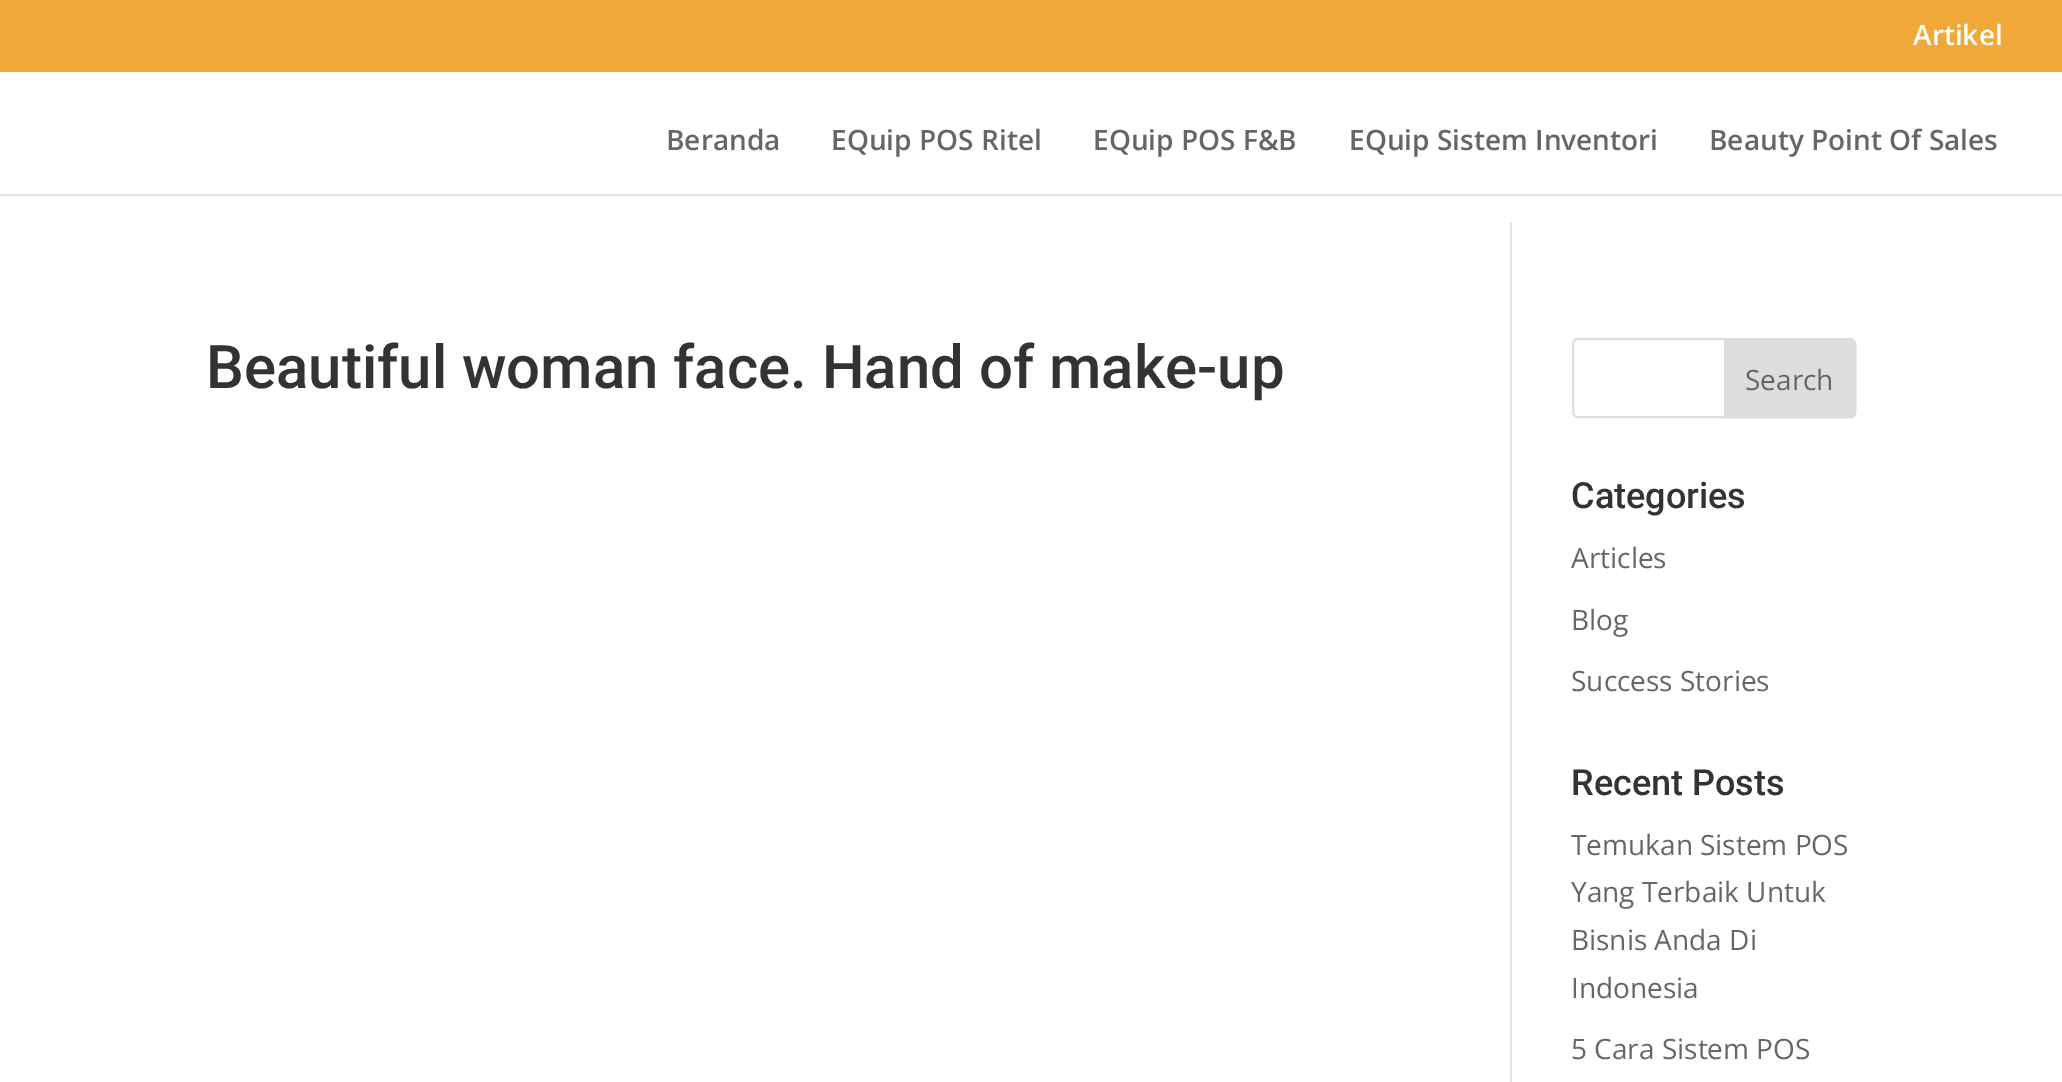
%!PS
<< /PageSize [2062 1082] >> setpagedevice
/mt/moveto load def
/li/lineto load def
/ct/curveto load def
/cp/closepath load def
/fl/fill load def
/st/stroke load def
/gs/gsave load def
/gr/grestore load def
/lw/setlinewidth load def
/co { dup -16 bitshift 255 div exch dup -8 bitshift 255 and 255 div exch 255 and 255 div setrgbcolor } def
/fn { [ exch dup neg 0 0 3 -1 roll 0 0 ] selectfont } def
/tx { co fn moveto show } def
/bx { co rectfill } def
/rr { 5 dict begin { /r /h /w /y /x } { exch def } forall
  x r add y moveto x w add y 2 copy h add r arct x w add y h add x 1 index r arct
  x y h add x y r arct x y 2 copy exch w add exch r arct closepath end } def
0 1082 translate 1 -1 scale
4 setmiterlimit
0 0 2062 1082 16#FFFFFF bx
0 0 2062 72 16#F0A839 bx
0 194 2062 2 16#E6E6E6 bx
1510 222 2 860 16#E2E2E2 bx
16#DDDDDD co
2 lw
1573 339 282 78 5 rr st
1725 339 mt 1850 339 li 1853 339 1855 341 1855 344 ct 1855 412 li 1855 415 1853 417 1850 417 ct 1725 417 li cp gs fl gr
st
(Artikel) 1913 45 /OpenSans-SemiBold 28 16#FFFFFF tx
(Beranda) 666 150 /OpenSans-SemiBold 28 16#666666 tx
(EQuip POS Ritel) 831 150 /OpenSans-SemiBold 28 16#666666 tx
(EQuip POS F&B) 1093 150 /OpenSans-SemiBold 28 16#666666 tx
(EQuip Sistem Inventori) 1349 150 /OpenSans-SemiBold 28 16#666666 tx
(Beauty Point Of Sales) 1709 150 /OpenSans-SemiBold 28 16#666666 tx
(Beautiful woman face. Hand of make-up) 206 388 /Roboto-Medium 60 16#333333 tx
(Search) 1745 390 /OpenSans-Regular 28 16#666666 tx
(Categories) 1571 508 /Roboto-Medium 36 16#333333 tx
(Articles) 1571 568 /OpenSans-Regular 28 16#666666 tx
(Blog) 1571 630 /OpenSans-Regular 28 16#666666 tx
(Success Stories) 1571 691 /OpenSans-Regular 28 16#666666 tx
(Recent Posts) 1571 795 /Roboto-Medium 36 16#333333 tx
(Temukan Sistem POS) 1571 855 /OpenSans-Regular 28 16#666666 tx
(Yang Terbaik Untuk) 1571 902 /OpenSans-Regular 28 16#666666 tx
(Bisnis Anda Di) 1571 950 /OpenSans-Regular 28 16#666666 tx
(Indonesia) 1571 998 /OpenSans-Regular 28 16#666666 tx
(5 Cara Sistem POS) 1571 1059 /OpenSans-Regular 28 16#666666 tx
showpage
